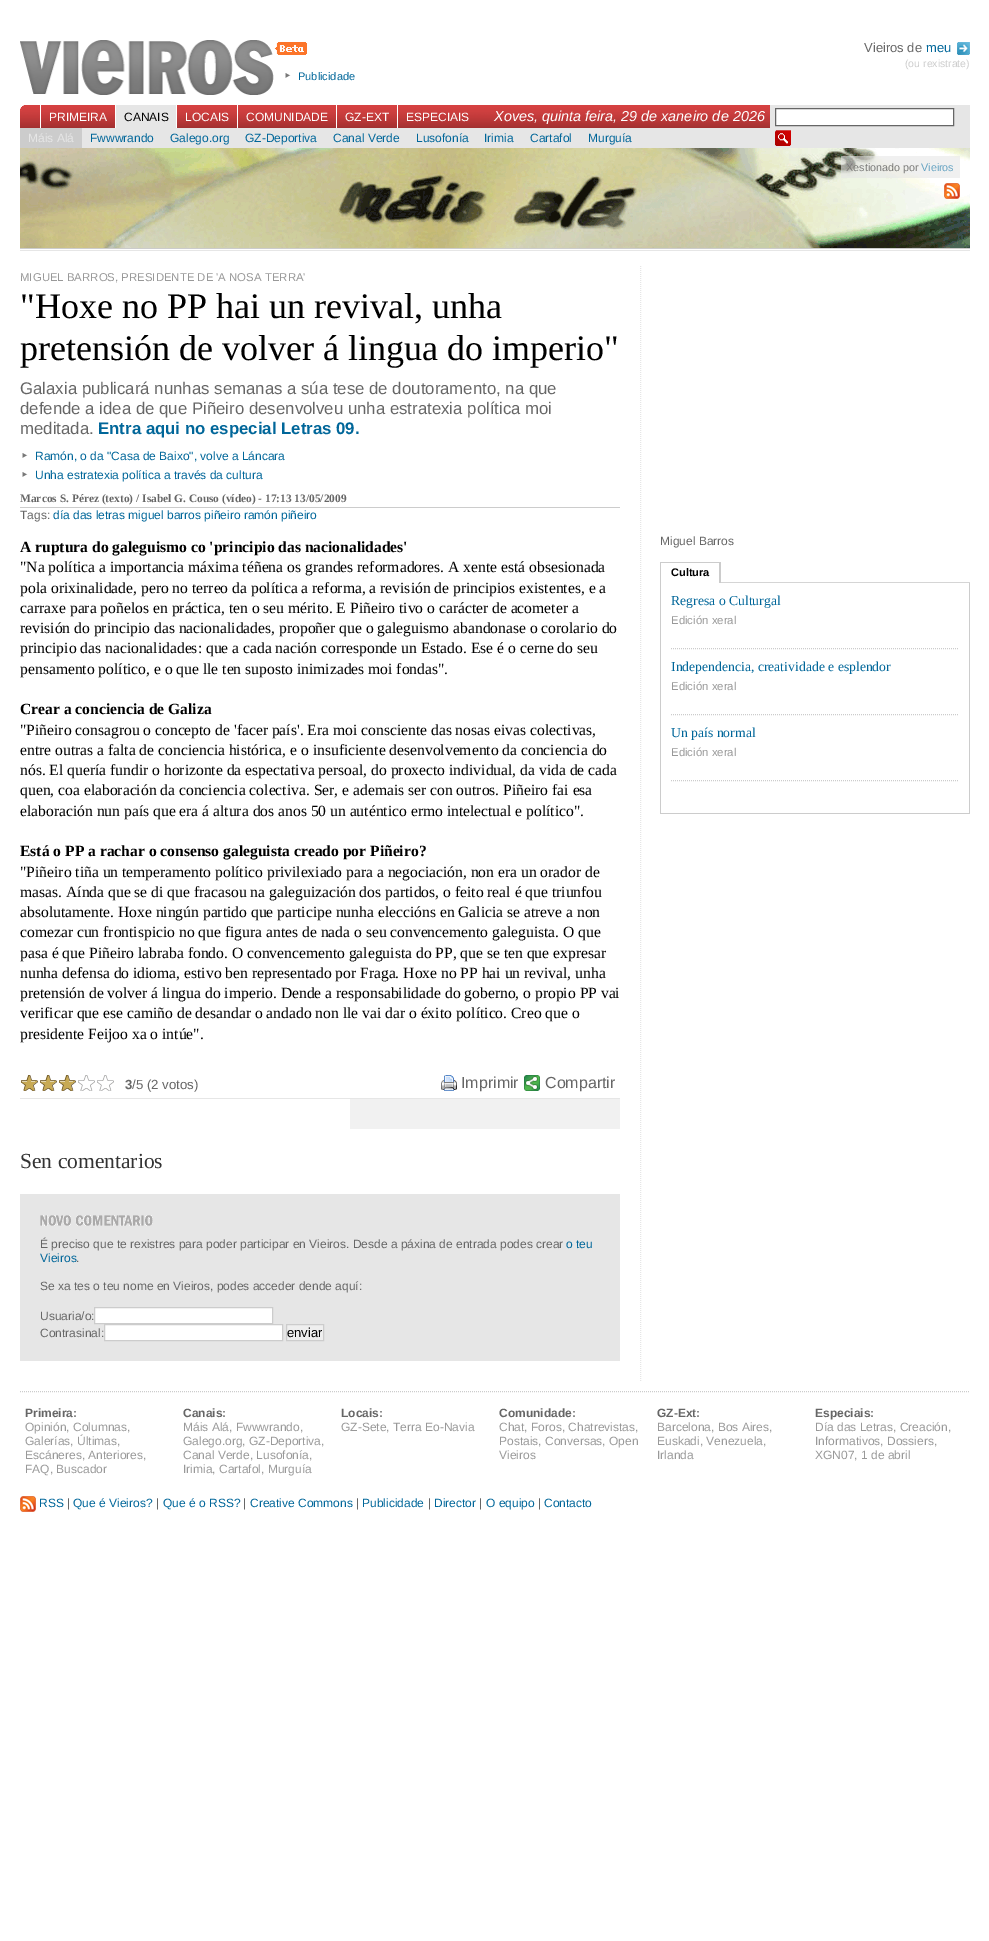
%!PS
<< /PageSize [989 1941] /PageUsesTransparency true >> setpagedevice
/mt/moveto load def
/li/lineto load def
/cp/closepath load def
/fl/fill load def
/st/stroke load def
/gs/gsave load def
/gr/grestore load def
/co { dup -16 bitshift 255 div exch dup -8 bitshift 255 and 255 div exch 255 and 255 div setrgbcolor } def
/fn { [ exch dup neg 0 0 3 -1 roll 0 0 ] selectfont } def
/tx { co fn moveto show } def
/bx { co rectfill } def
/al { dup .setfillconstantalpha .setstrokeconstantalpha } def
/im { 5 dict begin { /h /w /y /x /name } { exch def } forall
  gsave x y translate w h scale
  w h 8 [w 0 0 h 0 0] name (r) file false 3 colorimage grestore end } def
0 .pushpdf14devicefilter
0 1941 translate 1 -1 scale
4 setmiterlimit
0 0 989 1941 16#FFFFFF bx
(media/1.raw) 20 40 287 55 im
(media/2.raw) 957 42 13 13 im
(media/3.raw) 285 73 6 5 im
(media/4.raw) 20 105 750 23 im
40 105 1 23 16#FFFFFF bx
115 105 1 23 16#FFFFFF bx
116 105 60 23 16#E6E6E6 bx
176 105 1 23 16#FFFFFF bx
237 105 1 23 16#FFFFFF bx
336 105 1 23 16#FFFFFF bx
397 105 1 23 16#FFFFFF bx
770 105 200 23 16#E6E6E6 bx
16#FFFFFF co
775.5 108.5 mt 953.5 108.5 li 953.5 125.5 li 775.5 125.5 li cp gs fl gr
16#666666 co
st
82 128 888 20 16#E6E6E6 bx
(media/5.raw) 775 130 16 16 im
20 128 62 20 16#CCCCCC bx
(media/6.raw) 20 148 950 100 im
20 250 950 1 16#E6E6E6 bx
20 248 950 1 16#CCCCCC bx
0.6 al
841 156 119 22 16#E6E6E6 bx
1 al
(media/7.raw) 944 183 16 16 im
[1 1] 0 setdash
640.5 266 mt 640.5 1381 li st
(media/3.raw) 22 453 6 5 im
(media/3.raw) 22 472 6 5 im
20 507 600 1 16#CCCCCC bx
20 1098 600 1 16#E6E6E6 bx
(media/8.raw) 76 1075 38 16 im
(media/9.raw) 21 1075 55 16 im
(media/10.raw) 441 1075 16 16 im
(media/11.raw) 524 1075 16 16 im
350 1099 270 30 16#F1F1F1 bx
20 1194 600 167 16#E6E6E6 bx
(media/12.raw) 40 1215 113 11 im
16#FFFFFF co
94.5 1307.5 mt 272.5 1307.5 li 272.5 1323.5 li 94.5 1323.5 li cp gs fl gr
16#CCCCCC co
[] 0 setdash
st
16#FFFFFF co
104.5 1324.5 mt 282.5 1324.5 li 282.5 1340.5 li 104.5 1340.5 li cp gs fl gr
16#CCCCCC co
st
16#EFEFEF co
286.5 1324.5 mt 323.5 1324.5 li 323.5 1340.5 li 286.5 1340.5 li cp gs fl gr
16#CCCCCC co
st
721 582 249 1 16#D5D5D5 bx
660 562 61 1 16#CCCCCC bx
719 562 2 21 16#CCCCCC bx
660 562 1 21 16#CCCCCC bx
969 583 1 231 16#CCCCCC bx
660 813 310 1 16#CCCCCC bx
660 583 1 231 16#CCCCCC bx
[1 1] 0 setdash
671 648.5 mt 959 648.5 li st
671 714.5 mt 959 714.5 li st
671 780.5 mt 959 780.5 li st
20 1391.5 mt 970 1391.5 li st
(media/13.raw) 20 1496 16 16 im
(Vieiros de) 864 52 /LiberationSans-Regular 13 16#666666 tx
(meu) 926 52 /LiberationSans-Regular 13 16#006699 tx
(\(ou rexistrate\)) 905 67 /LiberationSans-Regular 10.5 16#CCCCCC tx
(Publicidade) 298 80 /LiberationSans-Regular 11 16#006699 tx
(PRIMEIRA) 49 121 /LiberationSans-Regular 12 16#FFFFFF tx
(CANAIS) 124 121 /LiberationSans-Regular 12 16#000000 tx
(LOCAIS) 185 121 /LiberationSans-Regular 12 16#FFFFFF tx
(COMUNIDADE) 246 121 /LiberationSans-Regular 12 16#FFFFFF tx
(GZ-EXT) 345 121 /LiberationSans-Regular 12 16#FFFFFF tx
(ESPECIAIS) 406 121 /LiberationSans-Regular 12 16#FFFFFF tx
(Xoves, quinta feira, 29 de xaneiro de 2026) 494 121 /LiberationSans-Italic 14.4 16#FFFFFF tx
(Máis Alá) 28 142 /LiberationSans-Regular 12 16#E6E6E6 tx
(Fwwwrando) 90 142 /LiberationSans-Regular 12 16#006699 tx
(Galego.org) 170 142 /LiberationSans-Regular 12 16#006699 tx
(GZ-Deportiva) 245 142 /LiberationSans-Regular 12 16#006699 tx
(Canal Verde) 333 142 /LiberationSans-Regular 12 16#006699 tx
(Lusofonía) 416 142 /LiberationSans-Regular 12 16#006699 tx
(Irimia) 484 142 /LiberationSans-Regular 12 16#006699 tx
(Cartafol) 530 142 /LiberationSans-Regular 12 16#006699 tx
(Murguía) 588 142 /LiberationSans-Regular 12 16#006699 tx
(Xestionado por) 846 171 /LiberationSans-Regular 10.75 16#7A7A78 tx
(Vieiros) 921 171 /LiberationSans-Regular 10.75 16#66A3C2 tx
(MIGUEL BARROS, PRESIDENTE DE 'A NOSA TERRA') 20 281 /LiberationSans-Regular 11.4 16#999999 tx
("Hoxe no PP hai un revival, unha) 20 318 /LiberationSerif-Regular 36 16#000000 tx
(pretensión de volver á lingua do imperio") 20 360 /LiberationSerif-Regular 36 16#000000 tx
(Galaxia publicará nunhas semanas a súa tese de doutoramento, na que) 20 394 /LiberationSans-Regular 16.8 16#666666 tx
(defende a idea de que Piñeiro desenvolveu unha estratexia política moi) 20 414 /LiberationSans-Regular 16.8 16#666666 tx
(meditada.) 20 434 /LiberationSans-Regular 16.8 16#666666 tx
(Entra aqui no especial Letras 09.) 98 434 /LiberationSans-Bold 16.8 16#006699 tx
(Ramón, o da "Casa de Baixo", volve a Láncara) 35 460 /LiberationSans-Regular 12 16#006699 tx
(Unha estratexia política a través da cultura) 35 479 /LiberationSans-Regular 12 16#006699 tx
(Marcos S. Pérez \(texto\) / Isabel G. Couso \(vídeo\) - 17:13 13/05/2009) 20 502 /LiberationSerif-Bold 11.4 16#666666 tx
(Tags:) 20 519 /LiberationSans-Regular 12 16#666666 tx
(día das letras miguel barros piñeiro ramón piñeiro) 53 519 /LiberationSans-Regular 12 16#006699 tx
(A ruptura do galeguismo co 'principio das nacionalidades') 20 552 /LiberationSerif-Bold 15.6 16#000000 tx
("Na política a importancia máxima téñena os grandes reformadores. A xente está obsesionada) 20 572 /LiberationSerif-Regular 15.6 16#000000 tx
(pola orixinalidade, pero no terreo da política a reforma, a revisión de principios existentes, e a) 20 593 /LiberationSerif-Regular 15.6 16#000000 tx
(carraxe para poñelos en práctica, ten o seu mérito. E Piñeiro tivo o carácter de acometer a) 20 613 /LiberationSerif-Regular 15.6 16#000000 tx
(revisión do principio das nacionalidades, propoñer que o galeguismo abandonase o corolario do) 20 633 /LiberationSerif-Regular 15.6 16#000000 tx
(principio das nacionalidades: que a cada nación corresponde un Estado. Ese é o cerne do seu) 20 653 /LiberationSerif-Regular 15.6 16#000000 tx
(pensamento político, e o que lle ten suposto inimizades moi fondas".) 20 674 /LiberationSerif-Regular 15.6 16#000000 tx
(Crear a conciencia de Galiza) 20 714 /LiberationSerif-Bold 15.6 16#000000 tx
("Piñeiro consagrou o concepto de 'facer país'. Era moi consciente das nosas eivas colectivas,) 20 735 /LiberationSerif-Regular 15.6 16#000000 tx
(entre outras a falta de conciencia histórica, e o insuficiente desenvolvemento da conciencia do) 20 755 /LiberationSerif-Regular 15.6 16#000000 tx
(nós. El quería fundir o horizonte da espectativa persoal, do proxecto individual, da vida de cada) 20 775 /LiberationSerif-Regular 15.6 16#000000 tx
(quen, coa elaboración da conciencia colectiva. Ser, e ademais ser con outros. Piñeiro fai esa) 20 795 /LiberationSerif-Regular 15.6 16#000000 tx
(elaboración nun país que era á altura dos anos 50 un auténtico ermo intelectual e político".) 20 816 /LiberationSerif-Regular 15.6 16#000000 tx
(Está o PP a rachar o consenso galeguista creado por Piñeiro?) 20 856 /LiberationSerif-Bold 15.6 16#000000 tx
("Piñeiro tiña un temperamento político privilexiado para a negociación, non era un orador de) 20 877 /LiberationSerif-Regular 15.6 16#000000 tx
(masas. Aínda que se di que fracasou na galeguización dos partidos, o feito real é que triunfou) 20 897 /LiberationSerif-Regular 15.6 16#000000 tx
(absolutamente. Hoxe ningún partido que participe nunha eleccións en Galicia se atreve a non) 20 917 /LiberationSerif-Regular 15.6 16#000000 tx
(comezar cun frontispicio no que figura antes de nada o seu convencemento galeguista. O que) 20 937 /LiberationSerif-Regular 15.6 16#000000 tx
(pasa é que Piñeiro labraba fondo. O convencemento galeguista do PP, que se ten que expresar) 20 958 /LiberationSerif-Regular 15.6 16#000000 tx
(nunha defensa do idioma, estivo ben representado por Fraga. Hoxe no PP hai un revival, unha) 20 978 /LiberationSerif-Regular 15.6 16#000000 tx
(pretensión de volver á lingua do imperio. Dende a responsabilidade do goberno, o propio PP vai) 20 998 /LiberationSerif-Regular 15.6 16#000000 tx
(verificar que ese camiño de desandar o andado non lle vai dar o éxito político. Creo que o) 20 1018 /LiberationSerif-Regular 15.6 16#000000 tx
(presidente Feijoo xa o intúe".) 20 1039 /LiberationSerif-Regular 15.6 16#000000 tx
(3) 125 1089 /LiberationSans-Bold 13.25 16#666666 tx
(/5 \(2 votos\)) 132 1089 /LiberationSans-Regular 13.25 16#666666 tx
(Imprimir) 461 1088 /LiberationSans-Regular 16 16#666666 tx
(Compartir) 545 1088 /LiberationSans-Regular 16 16#666666 tx
(Sen comentarios) 20 1168 /LiberationSerif-Regular 21.5 16#333333 tx
(É preciso que te rexistres para poder participar en Vieiros. Desde a páxina de entrada podes crear) 40 1248 /LiberationSans-Regular 12 16#666666 tx
(o teu) 566 1248 /LiberationSans-Regular 12 16#006699 tx
(Vieiros) 40 1262 /LiberationSans-Regular 12 16#006699 tx
(.) 76 1262 /LiberationSans-Regular 12 16#666666 tx
(Se xa tes o teu nome en Vieiros, podes acceder dende aquí:) 40 1290 /LiberationSans-Regular 12 16#666666 tx
(Usuaria/o:) 40 1320 /LiberationSans-Regular 12 16#666666 tx
(Contrasinal:) 40 1337 /LiberationSans-Regular 12 16#666666 tx
(enviar) 287 1337 /LiberationSans-Regular 13 16#000000 tx
(Miguel Barros) 660 545 /LiberationSans-Regular 12 16#666666 tx
(Cultura) 671 576 /LiberationSans-Bold 11 16#000000 tx
(Regresa o Culturgal) 671 605 /LiberationSerif-Regular 13.7 16#006699 tx
(Edición xeral) 671 624 /LiberationSans-Regular 11.4 16#999999 tx
(Independencia, creatividade e esplendor) 671 671 /LiberationSerif-Regular 13.7 16#006699 tx
(Edición xeral) 671 690 /LiberationSans-Regular 11.4 16#999999 tx
(Un país normal) 671 737 /LiberationSerif-Regular 13.7 16#006699 tx
(Edición xeral) 671 756 /LiberationSans-Regular 11.4 16#999999 tx
(Primeira:) 25 1417 /LiberationSans-Bold 12 16#666666 tx
(Opinión, Columnas,) 25 1431 /LiberationSans-Regular 12 16#999999 tx
(Galerías, Últimas,) 25 1445 /LiberationSans-Regular 12 16#999999 tx
(Escáneres, Anteriores,) 25 1459 /LiberationSans-Regular 12 16#999999 tx
(FAQ, Buscador) 25 1473 /LiberationSans-Regular 12 16#999999 tx
(Canais:) 183 1417 /LiberationSans-Bold 12 16#666666 tx
(Máis Alá, Fwwwrando,) 183 1431 /LiberationSans-Regular 12 16#999999 tx
(Galego.org, GZ-Deportiva,) 183 1445 /LiberationSans-Regular 12 16#999999 tx
(Canal Verde, Lusofonía,) 183 1459 /LiberationSans-Regular 12 16#999999 tx
(Irimia, Cartafol, Murguía) 183 1473 /LiberationSans-Regular 12 16#999999 tx
(Locais:) 341 1417 /LiberationSans-Bold 12 16#666666 tx
(GZ-Sete, Terra Eo-Navia) 341 1431 /LiberationSans-Regular 12 16#999999 tx
(Comunidade:) 499 1417 /LiberationSans-Bold 12 16#666666 tx
(Chat, Foros, Chatrevistas,) 499 1431 /LiberationSans-Regular 12 16#999999 tx
(Postais, Conversas, Open) 499 1445 /LiberationSans-Regular 12 16#999999 tx
(Vieiros) 499 1459 /LiberationSans-Regular 12 16#999999 tx
(GZ-Ext:) 657 1417 /LiberationSans-Bold 12 16#666666 tx
(Barcelona, Bos Aires,) 657 1431 /LiberationSans-Regular 12 16#999999 tx
(Euskadi, Venezuela,) 657 1445 /LiberationSans-Regular 12 16#999999 tx
(Irlanda) 657 1459 /LiberationSans-Regular 12 16#999999 tx
(Especiais:) 815 1417 /LiberationSans-Bold 12 16#666666 tx
(Día das Letras, Creación,) 815 1431 /LiberationSans-Regular 12 16#999999 tx
(Informativos, Dossiers,) 815 1445 /LiberationSans-Regular 12 16#999999 tx
(XGN07, 1 de abril) 815 1459 /LiberationSans-Regular 12 16#999999 tx
(RSS) 39 1507 /LiberationSans-Regular 12 16#006699 tx
(|) 67 1507 /LiberationSans-Regular 12 16#666666 tx
(Que é Vieiros?) 73 1507 /LiberationSans-Regular 12 16#006699 tx
(|) 156 1507 /LiberationSans-Regular 12 16#666666 tx
(Que é o RSS?) 163 1507 /LiberationSans-Regular 12 16#006699 tx
(|) 243 1507 /LiberationSans-Regular 12 16#666666 tx
(Creative Commons) 250 1507 /LiberationSans-Regular 12 16#006699 tx
(|) 356 1507 /LiberationSans-Regular 12 16#666666 tx
(Publicidade) 362 1507 /LiberationSans-Regular 12 16#006699 tx
(|) 428 1507 /LiberationSans-Regular 12 16#666666 tx
(Director) 434 1507 /LiberationSans-Regular 12 16#006699 tx
(|) 479 1507 /LiberationSans-Regular 12 16#666666 tx
(O equipo) 486 1507 /LiberationSans-Regular 12 16#006699 tx
(|) 538 1507 /LiberationSans-Regular 12 16#666666 tx
(Contacto) 544 1507 /LiberationSans-Regular 12 16#006699 tx
.poppdf14devicefilter showpage
